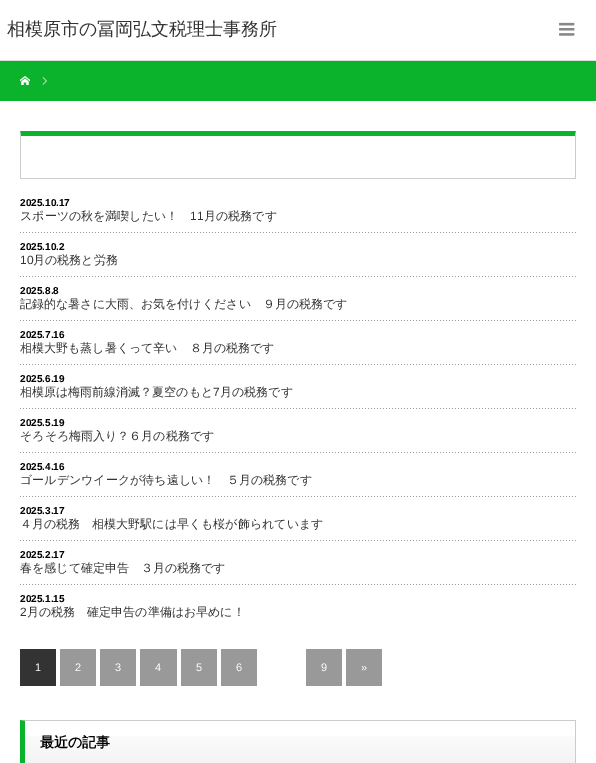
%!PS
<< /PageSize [596 763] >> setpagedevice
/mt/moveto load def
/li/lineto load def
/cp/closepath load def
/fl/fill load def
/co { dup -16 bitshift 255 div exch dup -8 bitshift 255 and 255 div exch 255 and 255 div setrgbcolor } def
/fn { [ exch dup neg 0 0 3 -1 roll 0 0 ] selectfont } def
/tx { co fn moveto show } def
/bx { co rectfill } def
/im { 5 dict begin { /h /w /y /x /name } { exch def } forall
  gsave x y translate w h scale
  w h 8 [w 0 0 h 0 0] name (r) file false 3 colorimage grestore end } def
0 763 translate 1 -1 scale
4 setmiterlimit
0 0 596 763 16#FFFFFF bx
0 60 596 1 16#DDDDDD bx
(media/1.raw) 559 22 16 14 im
0 61 596 40 16#0BB32C bx
(media/2.raw) 20 76 10 9 im
(media/3.raw) 42 77 5 8 im
20 131 mt 576 131 li 575 136 li 21 136 li cp fl
16#CCCCCC co
576 131 mt 576 179 li 575 178 li 575 136 li cp fl
20 178 556 1 16#CCCCCC bx
20 179 mt 20 131 li 21 136 li 21 178 li cp fl
(media/4.raw) 20 232 556 1 im
(media/4.raw) 20 276 556 1 im
(media/4.raw) 20 320 556 1 im
(media/4.raw) 20 364 556 1 im
(media/4.raw) 20 408 556 1 im
(media/4.raw) 20 452 556 1 im
(media/4.raw) 20 496 556 1 im
(media/4.raw) 20 540 556 1 im
(media/4.raw) 20 584 556 1 im
20 649 36 37 16#333333 bx
60 649 36 37 16#999999 bx
100 649 36 37 16#999999 bx
140 649 37 37 16#999999 bx
181 649 36 37 16#999999 bx
221 649 36 37 16#999999 bx
306 649 36 37 16#999999 bx
346 649 36 37 16#999999 bx
(media/5.raw) 25 736 550 27 im
16#CCCCCC co
20 720 mt 576 720 li 575 721 li 25 721 li cp fl
575 720 1 43 16#CCCCCC bx
16#0BB32C co
20 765 mt 20 720 li 25 721 li 25 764 li cp fl
(相模原市の冨岡弘文税理士事務所) 7 35 /WenQuanYiZenHei-Medium 18 16#333333 tx
(2025.10.17) 20 206 /LiberationSans-Bold 10 16#000000 tx
(スポーツの秋を満喫したい！) 20 220 /WenQuanYiZenHei-Medium 12 16#333333 tx
(11) 190 220 /LiberationSans-Regular 12 16#333333 tx
(月の税務です) 204 220 /WenQuanYiZenHei-Medium 12 16#333333 tx
(2025.10.2) 20 250 /LiberationSans-Bold 10 16#000000 tx
(10) 20 264 /LiberationSans-Regular 12 16#333333 tx
(月の税務と労務) 33 264 /WenQuanYiZenHei-Medium 12 16#333333 tx
(2025.8.8) 20 294 /LiberationSans-Bold 10 16#000000 tx
(記録的な暑さに大雨、お気を付けください　９月の税務です) 20 308 /WenQuanYiZenHei-Medium 12 16#333333 tx
(2025.7.16) 20 338 /LiberationSans-Bold 10 16#000000 tx
(相模大野も蒸し暑くって辛い　８月の税務です) 20 352 /WenQuanYiZenHei-Medium 12 16#333333 tx
(2025.6.19) 20 382 /LiberationSans-Bold 10 16#000000 tx
(相模原は梅雨前線消滅？夏空のもと) 20 396 /WenQuanYiZenHei-Medium 12 16#333333 tx
(7) 213 396 /LiberationSans-Regular 12 16#333333 tx
(月の税務です) 220 396 /WenQuanYiZenHei-Medium 12 16#333333 tx
(2025.5.19) 20 426 /LiberationSans-Bold 10 16#000000 tx
(そろそろ梅雨入り？６月の税務です) 20 440 /WenQuanYiZenHei-Medium 12 16#333333 tx
(2025.4.16) 20 470 /LiberationSans-Bold 10 16#000000 tx
(ゴールデンウイークが待ち遠しい！　５月の税務です) 20 484 /WenQuanYiZenHei-Medium 12 16#333333 tx
(2025.3.17) 20 514 /LiberationSans-Bold 10 16#000000 tx
(４月の税務　相模大野駅には早くも桜が飾られています) 20 528 /WenQuanYiZenHei-Medium 12 16#333333 tx
(2025.2.17) 20 558 /LiberationSans-Bold 10 16#000000 tx
(春を感じて確定申告　３月の税務です) 20 572 /WenQuanYiZenHei-Medium 12 16#333333 tx
(2025.1.15) 20 602 /LiberationSans-Bold 10 16#000000 tx
(2) 20 616 /LiberationSans-Regular 12 16#333333 tx
(月の税務　確定申告の準備はお早めに！) 27 616 /WenQuanYiZenHei-Medium 12 16#333333 tx
(1) 35 671 /LiberationSans-Regular 11 16#FFFFFF tx
(2) 75 671 /LiberationSans-Regular 11 16#FFFFFF tx
(3) 115 671 /LiberationSans-Regular 11 16#FFFFFF tx
(4) 155 671 /LiberationSans-Regular 11 16#FFFFFF tx
(5) 196 671 /LiberationSans-Regular 11 16#FFFFFF tx
(6) 236 671 /LiberationSans-Regular 11 16#FFFFFF tx
(9) 321 671 /LiberationSans-Regular 11 16#FFFFFF tx
(») 361 671 /LiberationSans-Regular 11 16#FFFFFF tx
(最近の記事) 40 747 /WenQuanYiZenHei-Bold 14 16#000000 tx
showpage
